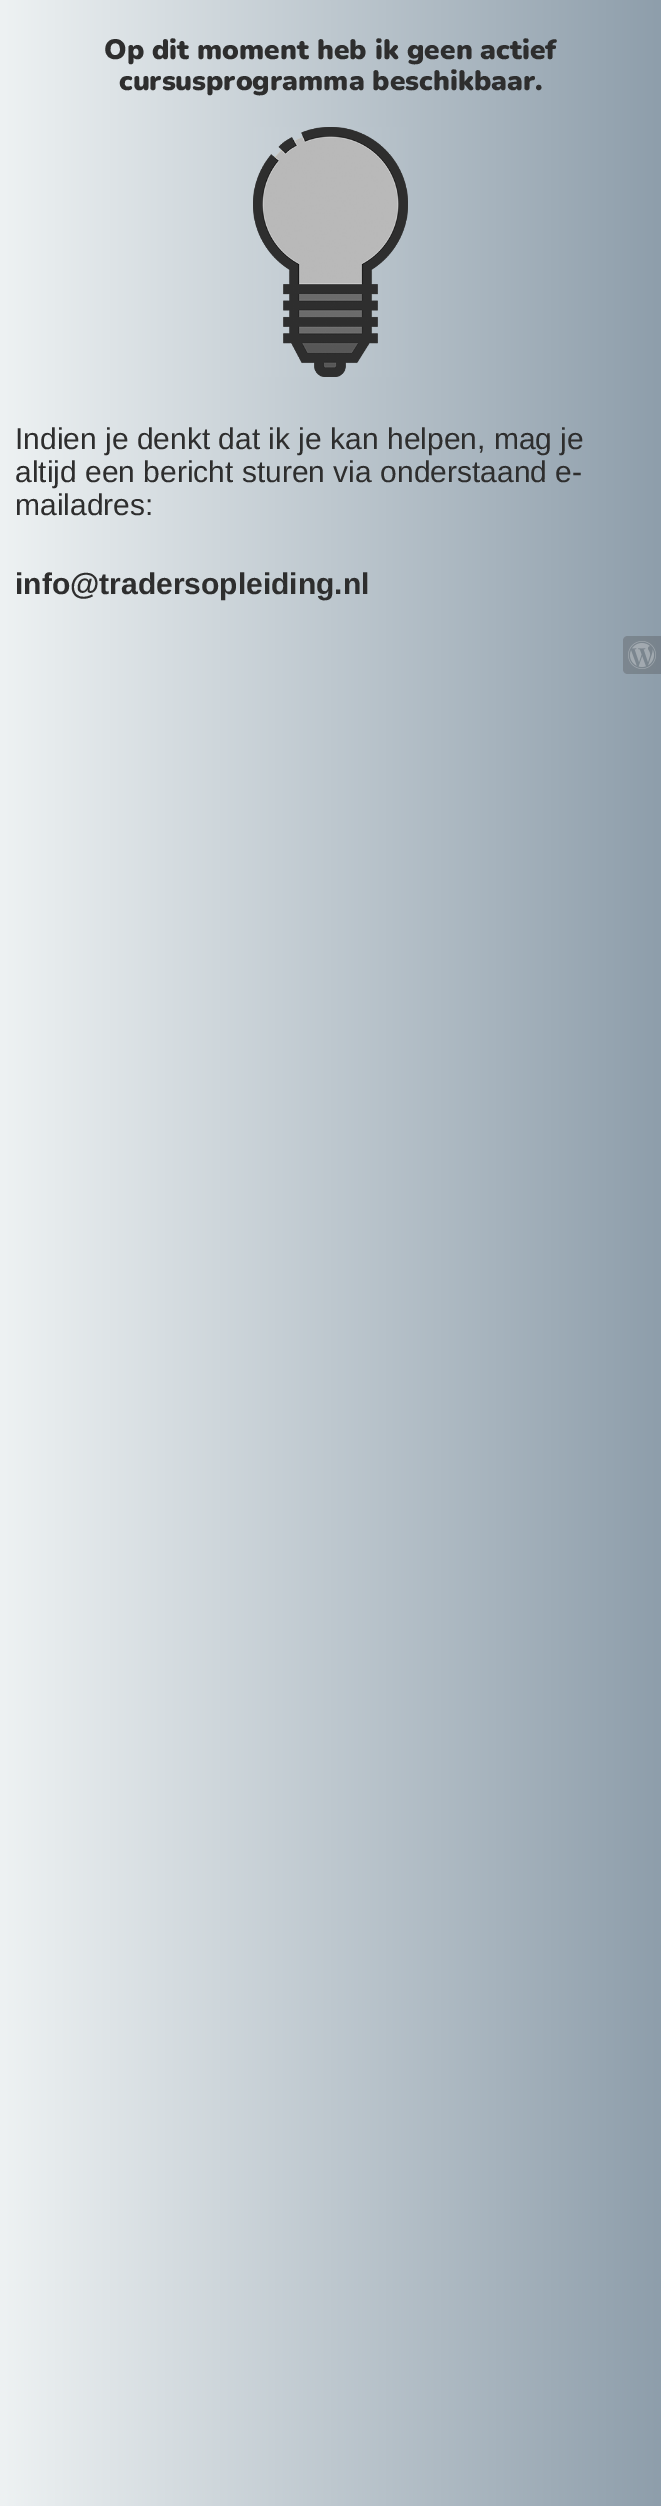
%!PS
<< /PageSize [661 2506] /PageUsesTransparency true >> setpagedevice
/mt/moveto load def
/li/lineto load def
/ct/curveto load def
/cp/closepath load def
/fl/fill load def
/gs/gsave load def
/gr/grestore load def
/co { dup -16 bitshift 255 div exch dup -8 bitshift 255 and 255 div exch 255 and 255 div setrgbcolor } def
/fn { [ exch dup neg 0 0 3 -1 roll 0 0 ] selectfont } def
/tx { co fn moveto show } def
/bx { co rectfill } def
/al { dup .setfillconstantalpha .setstrokeconstantalpha } def
/im { 5 dict begin { /h /w /y /x /name } { exch def } forall
  gsave x y translate w h scale
  w h 8 [w 0 0 h 0 0] name (r) file false 3 colorimage grestore end } def
0 .pushpdf14devicefilter
0 2506 translate 1 -1 scale
4 setmiterlimit
0 0 661 2506 16#FFFFFF bx
gs 0 0 mt 661 0 li 661 2506 li 0 2506 li cp clip newpath
<< /ShadingType 2 /ColorSpace /DeviceRGB /Coords [0 1253 661 1253] /Extend [true true] /Function << /FunctionType 2 /Domain [0 1] /C0 [.933 .949 .953] /C1 [.557 .62 .671] /N 1 >> >> shfill gr
(media/1.raw) 253 127 155 250 im
(media/2.raw) 253 127 155 250 im
0.3 al
16#464646 co
628 636 mt 661 636 li 661 674 li 628 674 li 625 674 623 672 623 669 ct 623 641 li 623 638 625 636 628 636 ct cp fl
1 al
(media/3.raw) 628 641 28 28 im
(Op dit moment heb ik geen actief) 104 59 /Nunito-ExtraLight 28 16#2E2E2E tx
(cursusprogramma beschikbaar.) 119 90 /Nunito-ExtraLight 28 16#2E2E2E tx
(Indien je denkt dat ik je kan helpen, mag je) 15 449 /LiberationSans-Regular 30 16#2E2E2E tx
(altijd een bericht sturen via onderstaand e-) 15 482 /LiberationSans-Regular 30 16#2E2E2E tx
(mailadres:) 15 515 /LiberationSans-Regular 30 16#2E2E2E tx
(info@tradersopleiding.nl) 15 594 /LiberationSans-Bold 30 16#2E2E2E tx
.poppdf14devicefilter showpage
